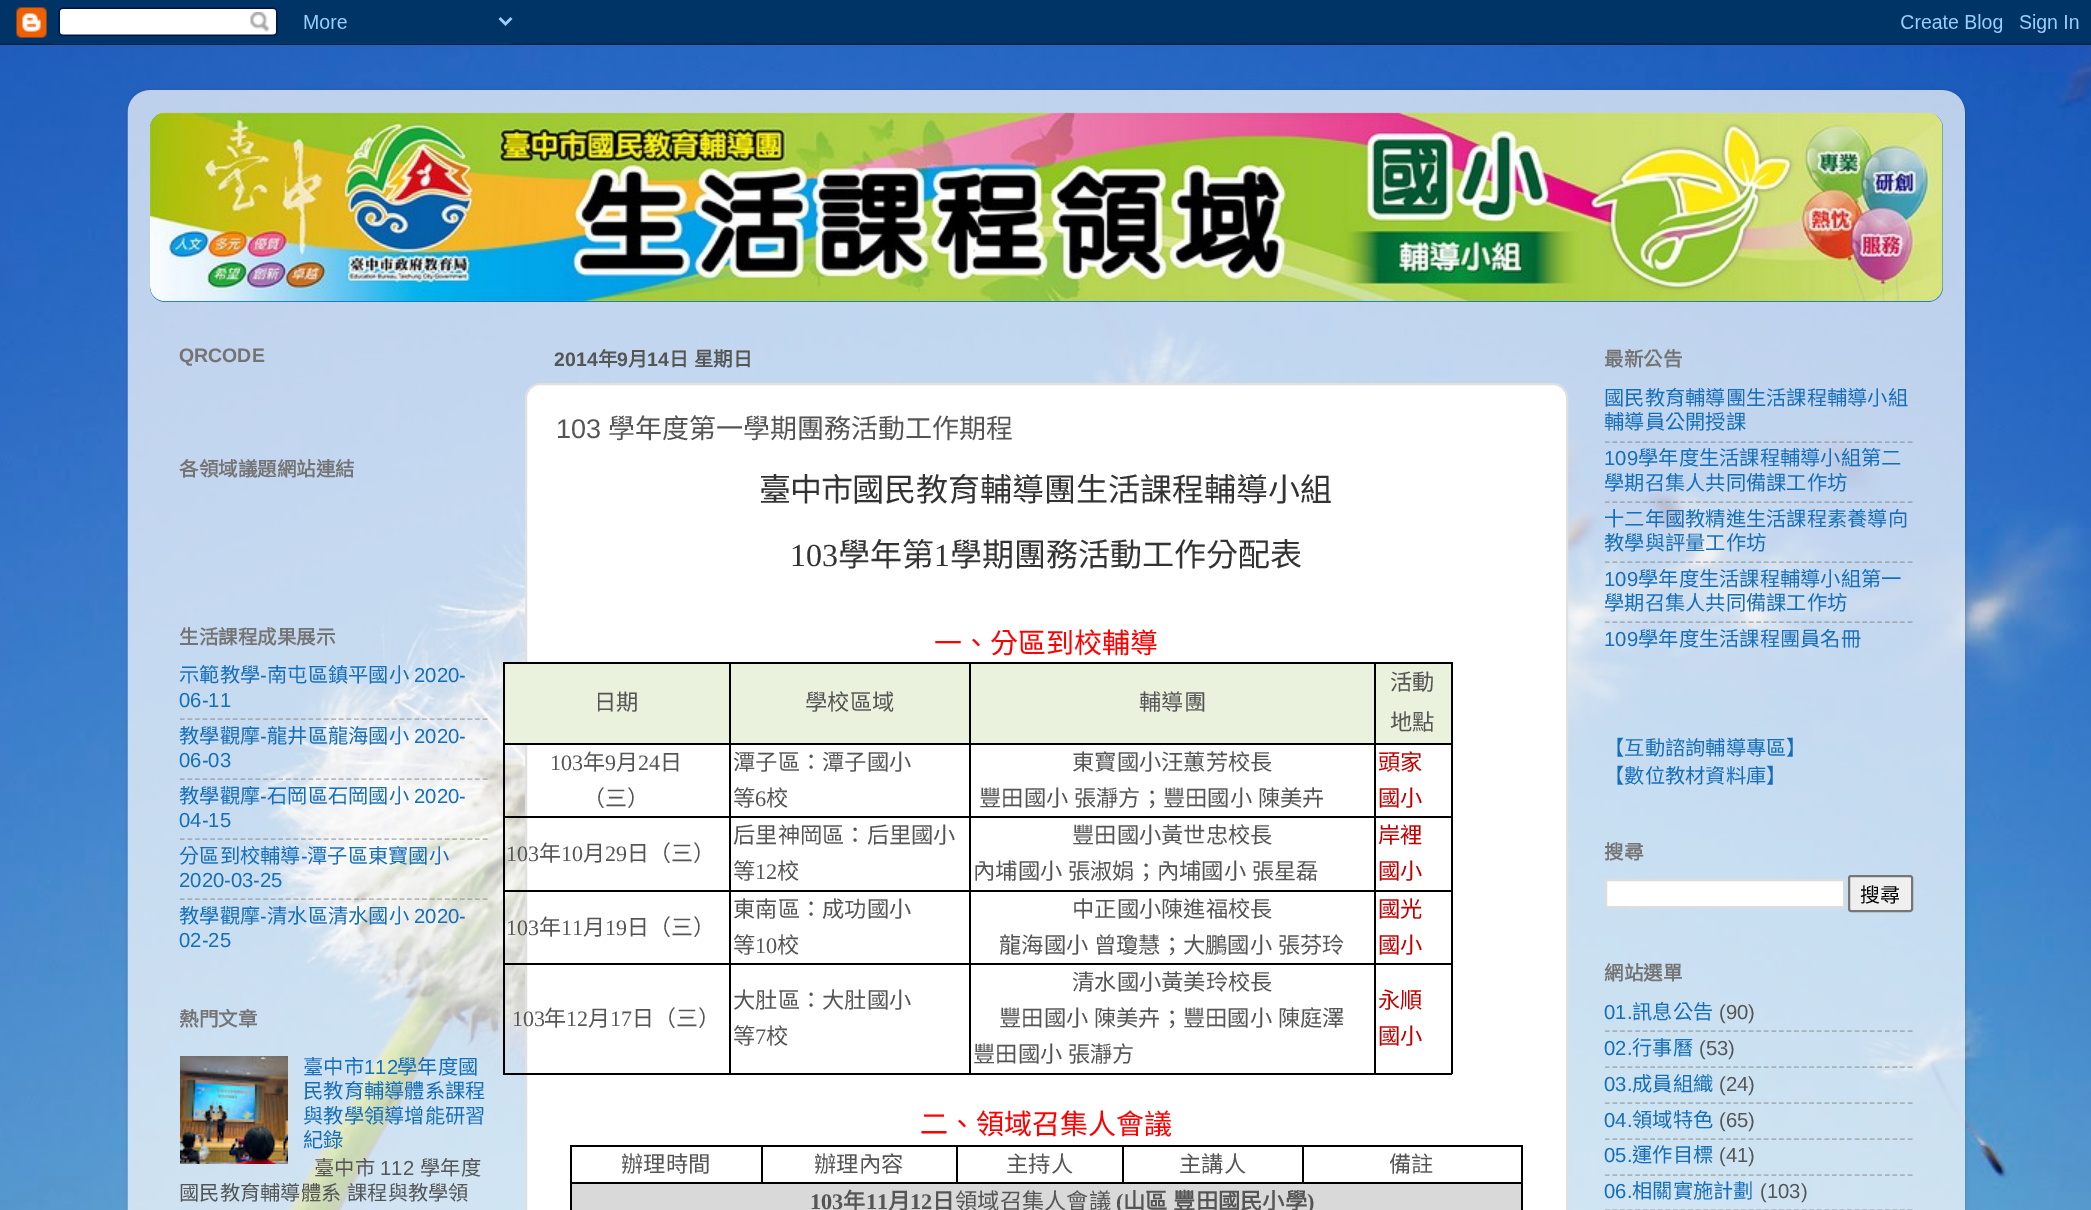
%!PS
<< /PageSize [2091 1210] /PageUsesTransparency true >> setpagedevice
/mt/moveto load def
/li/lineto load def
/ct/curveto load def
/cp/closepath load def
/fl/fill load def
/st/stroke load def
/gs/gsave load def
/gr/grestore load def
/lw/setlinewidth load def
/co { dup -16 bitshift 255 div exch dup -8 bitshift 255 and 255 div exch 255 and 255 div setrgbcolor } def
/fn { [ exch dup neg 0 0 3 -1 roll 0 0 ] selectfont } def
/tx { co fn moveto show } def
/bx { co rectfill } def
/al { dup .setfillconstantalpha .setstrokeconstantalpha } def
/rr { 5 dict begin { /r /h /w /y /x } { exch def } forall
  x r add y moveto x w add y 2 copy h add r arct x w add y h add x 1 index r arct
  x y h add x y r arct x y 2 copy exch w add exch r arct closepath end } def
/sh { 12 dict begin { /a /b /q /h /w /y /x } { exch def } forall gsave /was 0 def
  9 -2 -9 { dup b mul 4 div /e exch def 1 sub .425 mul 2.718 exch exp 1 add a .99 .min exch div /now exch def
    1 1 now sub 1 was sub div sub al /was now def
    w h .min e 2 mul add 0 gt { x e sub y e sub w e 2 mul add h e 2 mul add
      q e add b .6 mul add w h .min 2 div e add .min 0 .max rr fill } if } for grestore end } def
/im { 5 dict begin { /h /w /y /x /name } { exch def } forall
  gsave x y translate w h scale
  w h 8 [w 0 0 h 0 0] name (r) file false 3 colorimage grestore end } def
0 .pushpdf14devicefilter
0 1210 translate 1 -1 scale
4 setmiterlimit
0 0 2091 1210 16#FFFFFF bx
(media/1.raw) 0 43 2091 1167 im
(media/2.raw) 0 0 2091 45 im
gs
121 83 mt 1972 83 li 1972 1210 li 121 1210 li cp 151 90 mt 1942 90 li 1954.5 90 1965 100.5 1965 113 ct 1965 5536 li 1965 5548.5 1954.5 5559 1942 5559 ct 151 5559 li 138.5 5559 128 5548.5 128 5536 ct 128 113 li 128 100.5 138.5 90 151 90 ct cp eoclip newpath
16#000000 co
128 90 1837 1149 23 2 .15 sh
gr
(media/3.raw) 127 90 1838 1120 im
16#156EBA co
150 113 1793 189 15 rr fl
(media/4.raw) 150 113 1793 65 im
(media/5.raw) 150 112 1793 190 im
0.5 al
16#808080 co
1.5 lw
[4.5 3.07] 0 setdash
180 719 mt 487.5 719 li st
180 779 mt 487.5 779 li st
180 839 mt 487.5 839 li st
180 899 mt 487.5 899 li st
1 al
(media/6.raw) 180 1056 108 108 im
16#FFFFFF co
526 384 1041 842 14 rr gs fl gr
16#E0E0E0 co
2 lw
[] 0 setdash
st
505 664 224 79 16#EAF1DD bx
1374 662 78 2 16#000000 bx
1451 743 2 331 16#000000 bx
1451 662 2 82 16#000000 bx
1374 1073 78 2 16#000000 bx
1374 963 2 111 16#000000 bx
1374 963 78 2 16#000000 bx
1374 890 2 75 16#000000 bx
1374 890 78 2 16#000000 bx
1374 816 2 75 16#000000 bx
1374 816 78 2 16#000000 bx
1374 743 2 75 16#000000 bx
1374 743 78 2 16#000000 bx
1374 662 2 82 16#000000 bx
969 662 407 2 16#000000 bx
969 1073 407 2 16#000000 bx
969 963 2 111 16#000000 bx
969 963 407 2 16#000000 bx
969 890 2 75 16#000000 bx
969 890 407 2 16#000000 bx
969 816 2 75 16#000000 bx
969 816 407 2 16#000000 bx
969 743 2 75 16#000000 bx
969 743 407 2 16#000000 bx
969 662 2 82 16#000000 bx
729 662 242 2 16#000000 bx
503 743 228 2 16#000000 bx
503 816 228 2 16#000000 bx
503 890 228 2 16#000000 bx
503 963 228 2 16#000000 bx
729 1073 242 2 16#000000 bx
729 963 2 111 16#000000 bx
729 963 242 2 16#000000 bx
729 890 2 75 16#000000 bx
729 890 242 2 16#000000 bx
729 816 2 75 16#000000 bx
729 816 242 2 16#000000 bx
729 743 2 75 16#000000 bx
729 743 242 2 16#000000 bx
729 662 2 82 16#000000 bx
503 662 228 2 16#000000 bx
503 1073 228 2 16#000000 bx
503 963 2 111 16#000000 bx
503 890 2 75 16#000000 bx
503 816 2 75 16#000000 bx
503 743 2 75 16#000000 bx
503 662 2 82 16#000000 bx
731 664 238 79 16#EAF1DD bx
971 664 403 79 16#EAF1DD bx
1376 664 75 79 16#EAF1DD bx
1302 1145 221 2 16#000000 bx
570 1182 953 2 16#000000 bx
1302 1145 2 39 16#000000 bx
1122 1145 182 2 16#000000 bx
1122 1145 2 39 16#000000 bx
956 1145 168 2 16#000000 bx
956 1145 2 39 16#000000 bx
761 1145 196 2 16#000000 bx
761 1145 2 39 16#000000 bx
570 1145 192 2 16#000000 bx
570 1182 2 28 16#000000 bx
570 1145 2 39 16#000000 bx
1521 1182 2 28 16#000000 bx
1521 1145 2 39 16#000000 bx
572 1184 949 26 16#D9D9D9 bx
0.5 al
16#808080 co
1.5 lw
[4.5 3.07] 0 setdash
1605 442 mt 1912.5 442 li st
1605 502 mt 1912.5 502 li st
1605 562 mt 1912.5 562 li st
1605 622 mt 1912.5 622 li st
1 al
16#FFFFFF co
1606 880 mt 1844 880 li 1844 907 li 1606 907 li cp gs fl gr
16#DDDDDD co
2 lw
[] 0 setdash
st
16#EFEFEF co
1849 876 63 35 2 rr gs fl gr
16#767676 co
st
0.5 al
16#808080 co
1.5 lw
[4.5 3.07] 0 setdash
1605 1031 mt 1912.5 1031 li st
1605 1067 mt 1912.5 1067 li st
1605 1103 mt 1912.5 1103 li st
1 al
16#A7B1B9 co
1605 1139 mt 1912.5 1139 li st
16#A7B2B9 co
1605 1175 mt 1912.5 1175 li st
16#A8B2B9 co
1605 1210 mt 1912.5 1210 li st
(QRCODE) 179 362 /LiberationSans-Bold 19.5 16#747474 tx
(各領域議題網站連結) 179 476 /NotoSansCJKTC-Bold 19.5 16#747474 tx
(生活課程成果展示) 179 644 /NotoSansCJKTC-Bold 19.5 16#747474 tx
(示範教學) 179 682 /NotoSansCJKTC-Regular 20.25 16#156EBA tx
(-) 260 682 /LiberationSans-Regular 20.25 16#156EBA tx
(南屯區鎮平國小) 267 682 /NotoSansCJKTC-Regular 20.25 16#156EBA tx
(2020-) 414 682 /LiberationSans-Regular 20.25 16#156EBA tx
(06-11) 179 707 /LiberationSans-Regular 20.25 16#156EBA tx
(教學觀摩) 179 743 /NotoSansCJKTC-Regular 20.25 16#156EBA tx
(-) 260 743 /LiberationSans-Regular 20.25 16#156EBA tx
(龍井區龍海國小) 267 743 /NotoSansCJKTC-Regular 20.25 16#156EBA tx
(2020-) 414 743 /LiberationSans-Regular 20.25 16#156EBA tx
(06-03) 179 767 /LiberationSans-Regular 20.25 16#156EBA tx
(教學觀摩) 179 803 /NotoSansCJKTC-Regular 20.25 16#156EBA tx
(-) 260 803 /LiberationSans-Regular 20.25 16#156EBA tx
(石岡區石岡國小) 267 803 /NotoSansCJKTC-Regular 20.25 16#156EBA tx
(2020-) 414 803 /LiberationSans-Regular 20.25 16#156EBA tx
(04-15) 179 827 /LiberationSans-Regular 20.25 16#156EBA tx
(分區到校輔導) 179 863 /NotoSansCJKTC-Regular 20.25 16#156EBA tx
(-) 301 863 /LiberationSans-Regular 20.25 16#156EBA tx
(潭子區東寶國小) 307 863 /NotoSansCJKTC-Regular 20.25 16#156EBA tx
(2020-03-25) 179 887 /LiberationSans-Regular 20.25 16#156EBA tx
(教學觀摩) 179 923 /NotoSansCJKTC-Regular 20.25 16#156EBA tx
(-) 260 923 /LiberationSans-Regular 20.25 16#156EBA tx
(清水區清水國小) 267 923 /NotoSansCJKTC-Regular 20.25 16#156EBA tx
(2020-) 414 923 /LiberationSans-Regular 20.25 16#156EBA tx
(02-25) 179 947 /LiberationSans-Regular 20.25 16#156EBA tx
(熱門文章) 179 1026 /NotoSansCJKTC-Bold 19.5 16#747474 tx
(臺中市) 303 1074 /NotoSansCJKTC-Regular 20.25 16#156EBA tx
(112) 364 1074 /LiberationSans-Regular 20.25 16#156EBA tx
(學年度國) 397 1074 /NotoSansCJKTC-Regular 20.25 16#156EBA tx
(民教育輔導體系課程) 303 1098 /NotoSansCJKTC-Regular 20.25 16#156EBA tx
(與教學領導增能研習) 303 1123 /NotoSansCJKTC-Regular 20.25 16#156EBA tx
(紀錄) 303 1147 /NotoSansCJKTC-Regular 20.25 16#156EBA tx
(臺中市) 314 1175 /NotoSansCJKTC-Regular 20.25 16#555555 tx
(112) 380 1175 /LiberationSans-Regular 20.25 16#555555 tx
(學年度) 420 1175 /NotoSansCJKTC-Regular 20.25 16#555555 tx
(國民教育輔導體系) 179 1200 /NotoSansCJKTC-Regular 20.25 16#555555 tx
(課程與教學領) 347 1200 /NotoSansCJKTC-Regular 20.25 16#555555 tx
(2014) 554 366 /LiberationSans-Bold 19.5 16#555555 tx
(年) 598 366 /NotoSansCJKTC-Bold 19.5 16#555555 tx
(9) 617 366 /LiberationSans-Bold 19.5 16#555555 tx
(月) 628 366 /NotoSansCJKTC-Bold 19.5 16#555555 tx
(14) 647 366 /LiberationSans-Bold 19.5 16#555555 tx
/NotoSansCJKTC-Bold 19.5 fn
669 366 mt 1 0 32 (日 星期日) widthshow
(103) 556 438 /LiberationSans-Regular 27 16#555555 tx
(學年度第一學期團務活動工作期程) 608 438 /NotoSansCJKTC-Regular 27 16#555555 tx
/NotoSansCJKTC-Regular 32 fn
16#333333 co
759 501 mt -1 0 (臺中市) ashow
(國民教育輔導團生活課程輔導小組) 852 501 /NotoSansCJKTC-Regular 32 16#333333 tx
(103) 790 566 /LiberationSerif-Regular 32 16#333333 tx
(學年第) 838 566 /NotoSansCJKTC-Regular 32 16#333333 tx
(1) 934 566 /LiberationSerif-Regular 32 16#333333 tx
(學期團務活動工作分配表) 950 566 /NotoSansCJKTC-Regular 32 16#333333 tx
(一、分區到校輔導) 934 653 /NotoSansCJKTC-Regular 28 16#FF0000 tx
(日期) 594 710 /NotoSansCJKTC-Regular 22.25 16#555555 tx
(學校區域) 805 710 /NotoSansCJKTC-Regular 22.25 16#555555 tx
(輔導團) 1139 710 /NotoSansCJKTC-Regular 22.25 16#555555 tx
(活動) 1390 690 /NotoSansCJKTC-Regular 22.25 16#555555 tx
(地點) 1390 730 /NotoSansCJKTC-Regular 22.25 16#555555 tx
(103) 550 770 /LiberationSerif-Regular 22 16#555555 tx
(年) 583 770 /NotoSansCJKTC-Regular 22 16#555555 tx
(9) 605 770 /LiberationSerif-Regular 22 16#555555 tx
(月) 616 770 /NotoSansCJKTC-Regular 22 16#555555 tx
(24) 638 770 /LiberationSerif-Regular 22 16#555555 tx
(日) 660 770 /NotoSansCJKTC-Regular 22 16#555555 tx
(（三）) 583 806 /NotoSansCJKTC-Regular 22 16#555555 tx
(潭子區：潭子國小) 733 770 /NotoSansCJKTC-Regular 22.25 16#555555 tx
(等) 733 806 /NotoSansCJKTC-Regular 22.25 16#555555 tx
(6) 755 806 /LiberationSerif-Regular 22.25 16#555555 tx
(校) 766 806 /NotoSansCJKTC-Regular 22.25 16#555555 tx
(東寶國小汪蕙芳校長) 1072 770 /NotoSansCJKTC-Regular 22.25 16#555555 tx
979 806 mt 1 0 32 (豐田國小 張瀞方；豐田國小 陳美卉) widthshow
(頭家) 1378 770 /NotoSansCJKTC-Regular 22.25 16#C00000 tx
(國小) 1378 806 /NotoSansCJKTC-Regular 22.25 16#C00000 tx
(103) 506 861 /LiberationSerif-Regular 22 16#555555 tx
(年) 539 861 /NotoSansCJKTC-Regular 22 16#555555 tx
(10) 561 861 /LiberationSerif-Regular 22 16#555555 tx
(月) 583 861 /NotoSansCJKTC-Regular 22 16#555555 tx
(29) 605 861 /LiberationSerif-Regular 22 16#555555 tx
(日（三）) 627 861 /NotoSansCJKTC-Regular 22 16#555555 tx
(后里神岡區：后里國小) 733 843 /NotoSansCJKTC-Regular 22.25 16#555555 tx
(等) 733 879 /NotoSansCJKTC-Regular 22.25 16#555555 tx
(12) 755 879 /LiberationSerif-Regular 22.25 16#555555 tx
(校) 777 879 /NotoSansCJKTC-Regular 22.25 16#555555 tx
(豐田國小黃世忠校長) 1072 843 /NotoSansCJKTC-Regular 22.25 16#555555 tx
973 879 mt 1 0 32 (內埔國小 張淑娟；內埔國小 張星磊) widthshow
(岸裡) 1378 843 /NotoSansCJKTC-Regular 22.25 16#C00000 tx
(國小) 1378 879 /NotoSansCJKTC-Regular 22.25 16#C00000 tx
(103) 506 935 /LiberationSerif-Regular 22 16#555555 tx
(年) 539 935 /NotoSansCJKTC-Regular 22 16#555555 tx
(11) 561 935 /LiberationSerif-Regular 22 16#555555 tx
(月) 583 935 /NotoSansCJKTC-Regular 22 16#555555 tx
(19) 605 935 /LiberationSerif-Regular 22 16#555555 tx
(日（三）) 627 935 /NotoSansCJKTC-Regular 22 16#555555 tx
(東南區：成功國小) 733 917 /NotoSansCJKTC-Regular 22.25 16#555555 tx
(等) 733 953 /NotoSansCJKTC-Regular 22.25 16#555555 tx
(10) 755 953 /LiberationSerif-Regular 22.25 16#555555 tx
(校) 777 953 /NotoSansCJKTC-Regular 22.25 16#555555 tx
(中正國小陳進福校長) 1072 917 /NotoSansCJKTC-Regular 22.25 16#555555 tx
999 953 mt 1 0 32 (龍海國小 曾瓊慧；大鵬國小 張芬玲) widthshow
(國光) 1378 917 /NotoSansCJKTC-Regular 22.25 16#C00000 tx
(國小) 1378 953 /NotoSansCJKTC-Regular 22.25 16#C00000 tx
(103) 512 1026 /LiberationSerif-Regular 22 16#555555 tx
(年) 544 1026 /NotoSansCJKTC-Regular 22 16#555555 tx
(12) 566 1026 /LiberationSerif-Regular 22 16#555555 tx
(月) 588 1026 /NotoSansCJKTC-Regular 22 16#555555 tx
(17) 610 1026 /LiberationSerif-Regular 22 16#555555 tx
(日（三）) 632 1026 /NotoSansCJKTC-Regular 22 16#555555 tx
(大肚區：大肚國小) 733 1008 /NotoSansCJKTC-Regular 22.25 16#555555 tx
(等) 733 1044 /NotoSansCJKTC-Regular 22.25 16#555555 tx
(7) 755 1044 /LiberationSerif-Regular 22.25 16#555555 tx
(校) 766 1044 /NotoSansCJKTC-Regular 22.25 16#555555 tx
(清水國小黃美玲校長) 1072 990 /NotoSansCJKTC-Regular 22.25 16#555555 tx
999 1026 mt 1 0 32 (豐田國小 陳美卉；豐田國小 陳庭澤) widthshow
973 1062 mt 1 0 32 (豐田國小 張瀞方) widthshow
(永順) 1378 1008 /NotoSansCJKTC-Regular 22.25 16#C00000 tx
(國小) 1378 1044 /NotoSansCJKTC-Regular 22.25 16#C00000 tx
(二、領域召集人會議) 920 1134 /NotoSansCJKTC-Regular 28 16#FF0000 tx
(辦理時間) 621 1172 /NotoSansCJKTC-Regular 22.25 16#555555 tx
(辦理內容) 814 1172 /NotoSansCJKTC-Regular 22.25 16#555555 tx
(主持人) 1006 1172 /NotoSansCJKTC-Regular 22.25 16#555555 tx
(主講人) 1179 1172 /NotoSansCJKTC-Regular 22.25 16#555555 tx
(備註) 1389 1172 /NotoSansCJKTC-Regular 22.25 16#555555 tx
(103) 810 1209 /LiberationSerif-Bold 22.25 16#555555 tx
(年) 843 1209 /NotoSansCJKTC-Bold 22.25 16#555555 tx
(11) 866 1209 /LiberationSerif-Bold 22.25 16#555555 tx
(月) 888 1209 /NotoSansCJKTC-Bold 22.25 16#555555 tx
(12) 910 1209 /LiberationSerif-Bold 22.25 16#555555 tx
(日) 932 1209 /NotoSansCJKTC-Bold 22.25 16#555555 tx
(領域召集人會議) 955 1209 /NotoSansCJKTC-Regular 22.25 16#555555 tx
(\() 1116 1209 /LiberationSerif-Bold 22.25 16#555555 tx
/NotoSansCJKTC-Bold 22.25 fn
1123 1209 mt 1 0 32 (山區 豐田國民小學) widthshow
(\)) 1307 1209 /LiberationSerif-Bold 22.25 16#555555 tx
(最新公告) 1604 366 /NotoSansCJKTC-Bold 19.5 16#747474 tx
(國民教育輔導團生活課程輔導小組) 1604 405 /NotoSansCJKTC-Regular 20.25 16#156EBA tx
(輔導員公開授課) 1604 429 /NotoSansCJKTC-Regular 20.25 16#156EBA tx
(109) 1604 465 /LiberationSans-Regular 20.25 16#156EBA tx
(學年度生活課程輔導小組第二) 1638 465 /NotoSansCJKTC-Regular 20.25 16#156EBA tx
(學期召集人共同備課工作坊) 1604 490 /NotoSansCJKTC-Regular 20.25 16#156EBA tx
(十二年國教精進生活課程素養導向) 1604 526 /NotoSansCJKTC-Regular 20.25 16#156EBA tx
(教學與評量工作坊) 1604 550 /NotoSansCJKTC-Regular 20.25 16#156EBA tx
(109) 1604 586 /LiberationSans-Regular 20.25 16#156EBA tx
(學年度生活課程輔導小組第一) 1638 586 /NotoSansCJKTC-Regular 20.25 16#156EBA tx
(學期召集人共同備課工作坊) 1604 610 /NotoSansCJKTC-Regular 20.25 16#156EBA tx
(109) 1604 646 /LiberationSans-Regular 20.25 16#156EBA tx
(學年度生活課程團員名冊) 1638 646 /NotoSansCJKTC-Regular 20.25 16#156EBA tx
(【互動諮詢輔導專區】) 1604 755 /NotoSansCJKTC-Regular 20.25 16#156EBA tx
(【數位教材資料庫】) 1604 783 /NotoSansCJKTC-Regular 20.25 16#156EBA tx
(搜尋) 1604 859 /NotoSansCJKTC-Bold 19.5 16#747474 tx
(搜尋) 1860 902 /NotoSansCJKTC-Regular 20 16#000000 tx
(網站選單) 1604 980 /NotoSansCJKTC-Bold 19.5 16#747474 tx
(01.) 1604 1019 /LiberationSans-Regular 20.25 16#156EBA tx
(訊息公告) 1632 1019 /NotoSansCJKTC-Regular 20.25 16#156EBA tx
(\(90\)) 1719 1019 /LiberationSans-Regular 20.25 16#555555 tx
(02.) 1604 1055 /LiberationSans-Regular 20.25 16#156EBA tx
(行事曆) 1632 1055 /NotoSansCJKTC-Regular 20.25 16#156EBA tx
(\(53\)) 1699 1055 /LiberationSans-Regular 20.25 16#555555 tx
(03.) 1604 1091 /LiberationSans-Regular 20.25 16#156EBA tx
(成員組織) 1632 1091 /NotoSansCJKTC-Regular 20.25 16#156EBA tx
(\(24\)) 1719 1091 /LiberationSans-Regular 20.25 16#555555 tx
(04.) 1604 1127 /LiberationSans-Regular 20.25 16#156EBA tx
(領域特色) 1632 1127 /NotoSansCJKTC-Regular 20.25 16#156EBA tx
(\(65\)) 1719 1127 /LiberationSans-Regular 20.25 16#555555 tx
(05.) 1604 1162 /LiberationSans-Regular 20.25 16#156EBA tx
(運作目標) 1632 1162 /NotoSansCJKTC-Regular 20.25 16#156EBA tx
(\(41\)) 1719 1162 /LiberationSans-Regular 20.25 16#555555 tx
(06.) 1604 1198 /LiberationSans-Regular 20.25 16#156EBA tx
(相關實施計劃) 1632 1198 /NotoSansCJKTC-Regular 20.25 16#156EBA tx
(\(103\)) 1760 1198 /LiberationSans-Regular 20.25 16#555555 tx
.poppdf14devicefilter showpage
